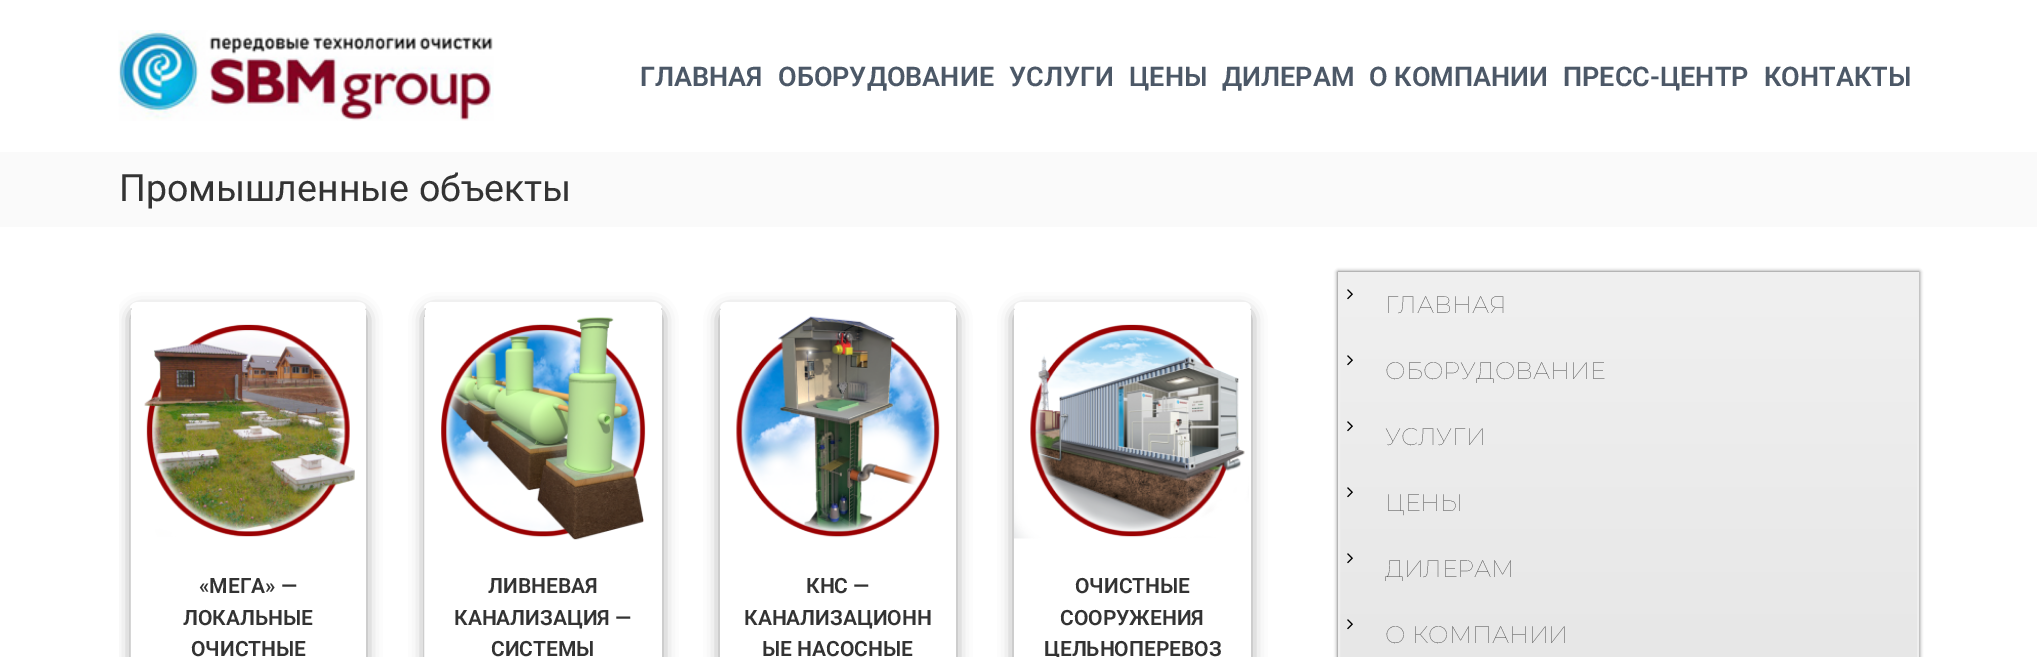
%!PS
<< /PageSize [2037 657] /PageUsesTransparency true >> setpagedevice
/mt/moveto load def
/li/lineto load def
/ct/curveto load def
/cp/closepath load def
/fl/fill load def
/gs/gsave load def
/gr/grestore load def
/lw/setlinewidth load def
/co { dup -16 bitshift 255 div exch dup -8 bitshift 255 and 255 div exch 255 and 255 div setrgbcolor } def
/fn { [ exch dup neg 0 0 3 -1 roll 0 0 ] selectfont } def
/tx { co fn moveto show } def
/bx { co rectfill } def
/al { dup .setfillconstantalpha .setstrokeconstantalpha } def
/rr { 5 dict begin { /r /h /w /y /x } { exch def } forall
  x r add y moveto x w add y 2 copy h add r arct x w add y h add x 1 index r arct
  x y h add x y r arct x y 2 copy exch w add exch r arct closepath end } def
/sh { 12 dict begin { /a /b /q /h /w /y /x } { exch def } forall gsave /was 0 def
  9 -2 -9 { dup b mul 4 div /e exch def 1 sub .425 mul 2.718 exch exp 1 add a .99 .min exch div /now exch def
    1 1 now sub 1 was sub div sub al /was now def
    w h .min e 2 mul add 0 gt { x e sub y e sub w e 2 mul add h e 2 mul add
      q e add b .6 mul add w h .min 2 div e add .min 0 .max rr fill } if } for grestore end } def
/im { 5 dict begin { /h /w /y /x /name } { exch def } forall
  gsave x y translate w h scale
  w h 8 [w 0 0 h 0 0] name (r) file false 3 colorimage grestore end } def
0 .pushpdf14devicefilter
0 657 translate 1 -1 scale
4 setmiterlimit
0 0 2037 657 16#FFFFFF bx
(media/1.raw) 118 30 376 91 im
0 152 2037 75 16#FAFAFA bx
gs
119 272 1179 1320 rectclip
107 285 mt 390 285 li 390 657 li 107 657 li cp 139 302 mt 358 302 li 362.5 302 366 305.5 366 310 ct 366 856 li 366 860.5 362.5 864 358 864 ct 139 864 li 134.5 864 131 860.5 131 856 ct 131 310 li 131 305.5 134.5 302 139 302 ct cp eoclip newpath
16#999999 co
131 309 235 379 8 7.5 1 sh
gr
0.19 al
130 319 1 338 16#FFFFFF bx
1 al
138 302 mt 358 302 li 363 302 366 305 366 309 ct 366 308 363 308 358 308 ct 138 308 li 135 308 132 308 130 308 ct 130 305 134 302 138 302 ct cp fl
(media/2.raw) 144 324 211 213 im
gs
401 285 mt 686 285 li 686 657 li 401 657 li cp 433 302 mt 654 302 li 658.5 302 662 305.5 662 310 ct 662 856 li 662 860.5 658.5 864 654 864 ct 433 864 li 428.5 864 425 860.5 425 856 ct 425 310 li 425 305.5 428.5 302 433 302 ct cp eoclip newpath
16#999999 co
425 309 237 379 8 7.5 1 sh
gr
0.75 al
424 317 238 340 16#FFFFFF bx
1 al
432 302 mt 654 302 li 657 302 660 304 662 307 ct 662 308 li 660 308 657 308 654 308 ct 432 308 li 429 308 426 308 424 308 ct 424 305 428 302 432 302 ct cp fl
(media/3.raw) 441 317 205 223 im
661 554 1 3 16#FFFFFF bx
gs
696 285 mt 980 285 li 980 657 li 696 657 li cp 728 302 mt 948 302 li 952.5 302 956 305.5 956 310 ct 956 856 li 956 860.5 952.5 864 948 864 ct 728 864 li 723.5 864 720 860.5 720 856 ct 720 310 li 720 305.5 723.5 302 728 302 ct cp eoclip newpath
16#999999 co
720 309 236 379 8 7.5 1 sh
gr
0.19 al
955 317 1 340 16#FFFFFF bx
1 al
728 302 mt 948 302 li 951 302 954 304 956 307 ct 956 308 li 954 308 951 308 948 308 ct 728 308 li 723 308 720 308 720 309 ct 720 305 723 302 728 302 ct cp fl
(media/4.raw) 736 316 204 222 im
955 554 1 3 16#FFFFFF bx
gs
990 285 mt 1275 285 li 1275 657 li 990 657 li cp 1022 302 mt 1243 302 li 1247.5 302 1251 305.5 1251 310 ct 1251 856 li 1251 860.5 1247.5 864 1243 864 ct 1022 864 li 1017.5 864 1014 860.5 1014 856 ct 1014 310 li 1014 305.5 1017.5 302 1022 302 ct cp eoclip newpath
16#999999 co
1014 309 237 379 8 7.5 1 sh
gr
1022 302 mt 1017 302 1014 305 1014 309 ct 1014 308 1017 308 1022 308 ct 1244 308 li 1248 308 1251 308 1251 309 ct 1251 305 1248 302 1244 302 ct cp fl
(media/5.raw) 1014 324 235 215 im
16#444444 co
1338 272 581 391 0 2 1 sh
gs 1340 274 mt 1917 274 li 1917 657 li 1340 657 li cp clip newpath
<< /ShadingType 2 /ColorSpace /DeviceRGB /Coords [1628 273 1628 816] /Extend [true true] /Function << /FunctionType 2 /Domain [0 1] /C0 [.941 .941 .941] /C1 [.89 .89 .89] /N 1 >> >> shfill gr
16#EFEFEF co
2 lw
1339 273 579 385 rectstroke
(media/6.raw) 1347 289 6 11 im
(media/7.raw) 1347 355 6 11 im
(media/8.raw) 1347 421 6 11 im
(media/9.raw) 1347 487 6 11 im
(media/10.raw) 1347 553 6 11 im
(media/11.raw) 1347 619 6 11 im
(ГЛАВНАЯ) 640 86 /Roboto-SemiBold 27 16#4C5867 tx
(ОБОРУДОВАНИЕ) 778 86 /Roboto-SemiBold 27 16#4C5867 tx
(УСЛУГИ) 1009 86 /Roboto-SemiBold 27 16#4C5867 tx
(ЦЕНЫ) 1129 86 /Roboto-SemiBold 27 16#4C5867 tx
(ДИЛЕРАМ) 1222 86 /Roboto-SemiBold 27 16#4C5867 tx
(О КОМПАНИИ) 1369 86 /Roboto-SemiBold 27 16#4C5867 tx
(ПРЕСС-ЦЕНТР) 1563 86 /Roboto-SemiBold 27 16#4C5867 tx
(КОНТАКТЫ) 1764 86 /Roboto-SemiBold 27 16#4C5867 tx
(Промышленные объекты) 119 201 /Roboto-Regular 37.5 16#333333 tx
(«МЕГА» —) 199 593 /Roboto-SemiBold 21 16#333333 tx
(ЛОКАЛЬНЫЕ) 183 625 /Roboto-SemiBold 21 16#333333 tx
(ОЧИСТНЫЕ) 191 656 /Roboto-SemiBold 21 16#333333 tx
(ЛИВНЕВАЯ) 488 593 /Roboto-SemiBold 21 16#333333 tx
(КАНАЛИЗАЦИЯ —) 454 625 /Roboto-SemiBold 21 16#333333 tx
(СИСТЕМЫ) 491 656 /Roboto-SemiBold 21 16#333333 tx
(КНС —) 806 593 /Roboto-SemiBold 21 16#333333 tx
(КАНАЛИЗАЦИОНН) 744 625 /Roboto-SemiBold 21 16#333333 tx
(ЫЕ НАСОСНЫЕ) 762 656 /Roboto-SemiBold 21 16#333333 tx
(ОЧИСТНЫЕ) 1075 593 /Roboto-SemiBold 21 16#333333 tx
(СООРУЖЕНИЯ) 1060 625 /Roboto-SemiBold 21 16#333333 tx
(ЦЕЛЬНОПЕРЕВОЗ) 1044 656 /Roboto-SemiBold 21 16#333333 tx
(ГЛАВНАЯ) 1385 313 /Montserrat-Thin 24 16#525252 tx
(ОБОРУДОВАНИЕ) 1385 379 /Montserrat-Thin 24 16#525252 tx
(УСЛУГИ) 1385 445 /Montserrat-Thin 24 16#525252 tx
(ЦЕНЫ) 1385 511 /Montserrat-Thin 24 16#525252 tx
(ДИЛЕРАМ) 1385 577 /Montserrat-Thin 24 16#525252 tx
(О КОМПАНИИ) 1385 643 /Montserrat-Thin 24 16#525252 tx
.poppdf14devicefilter showpage
